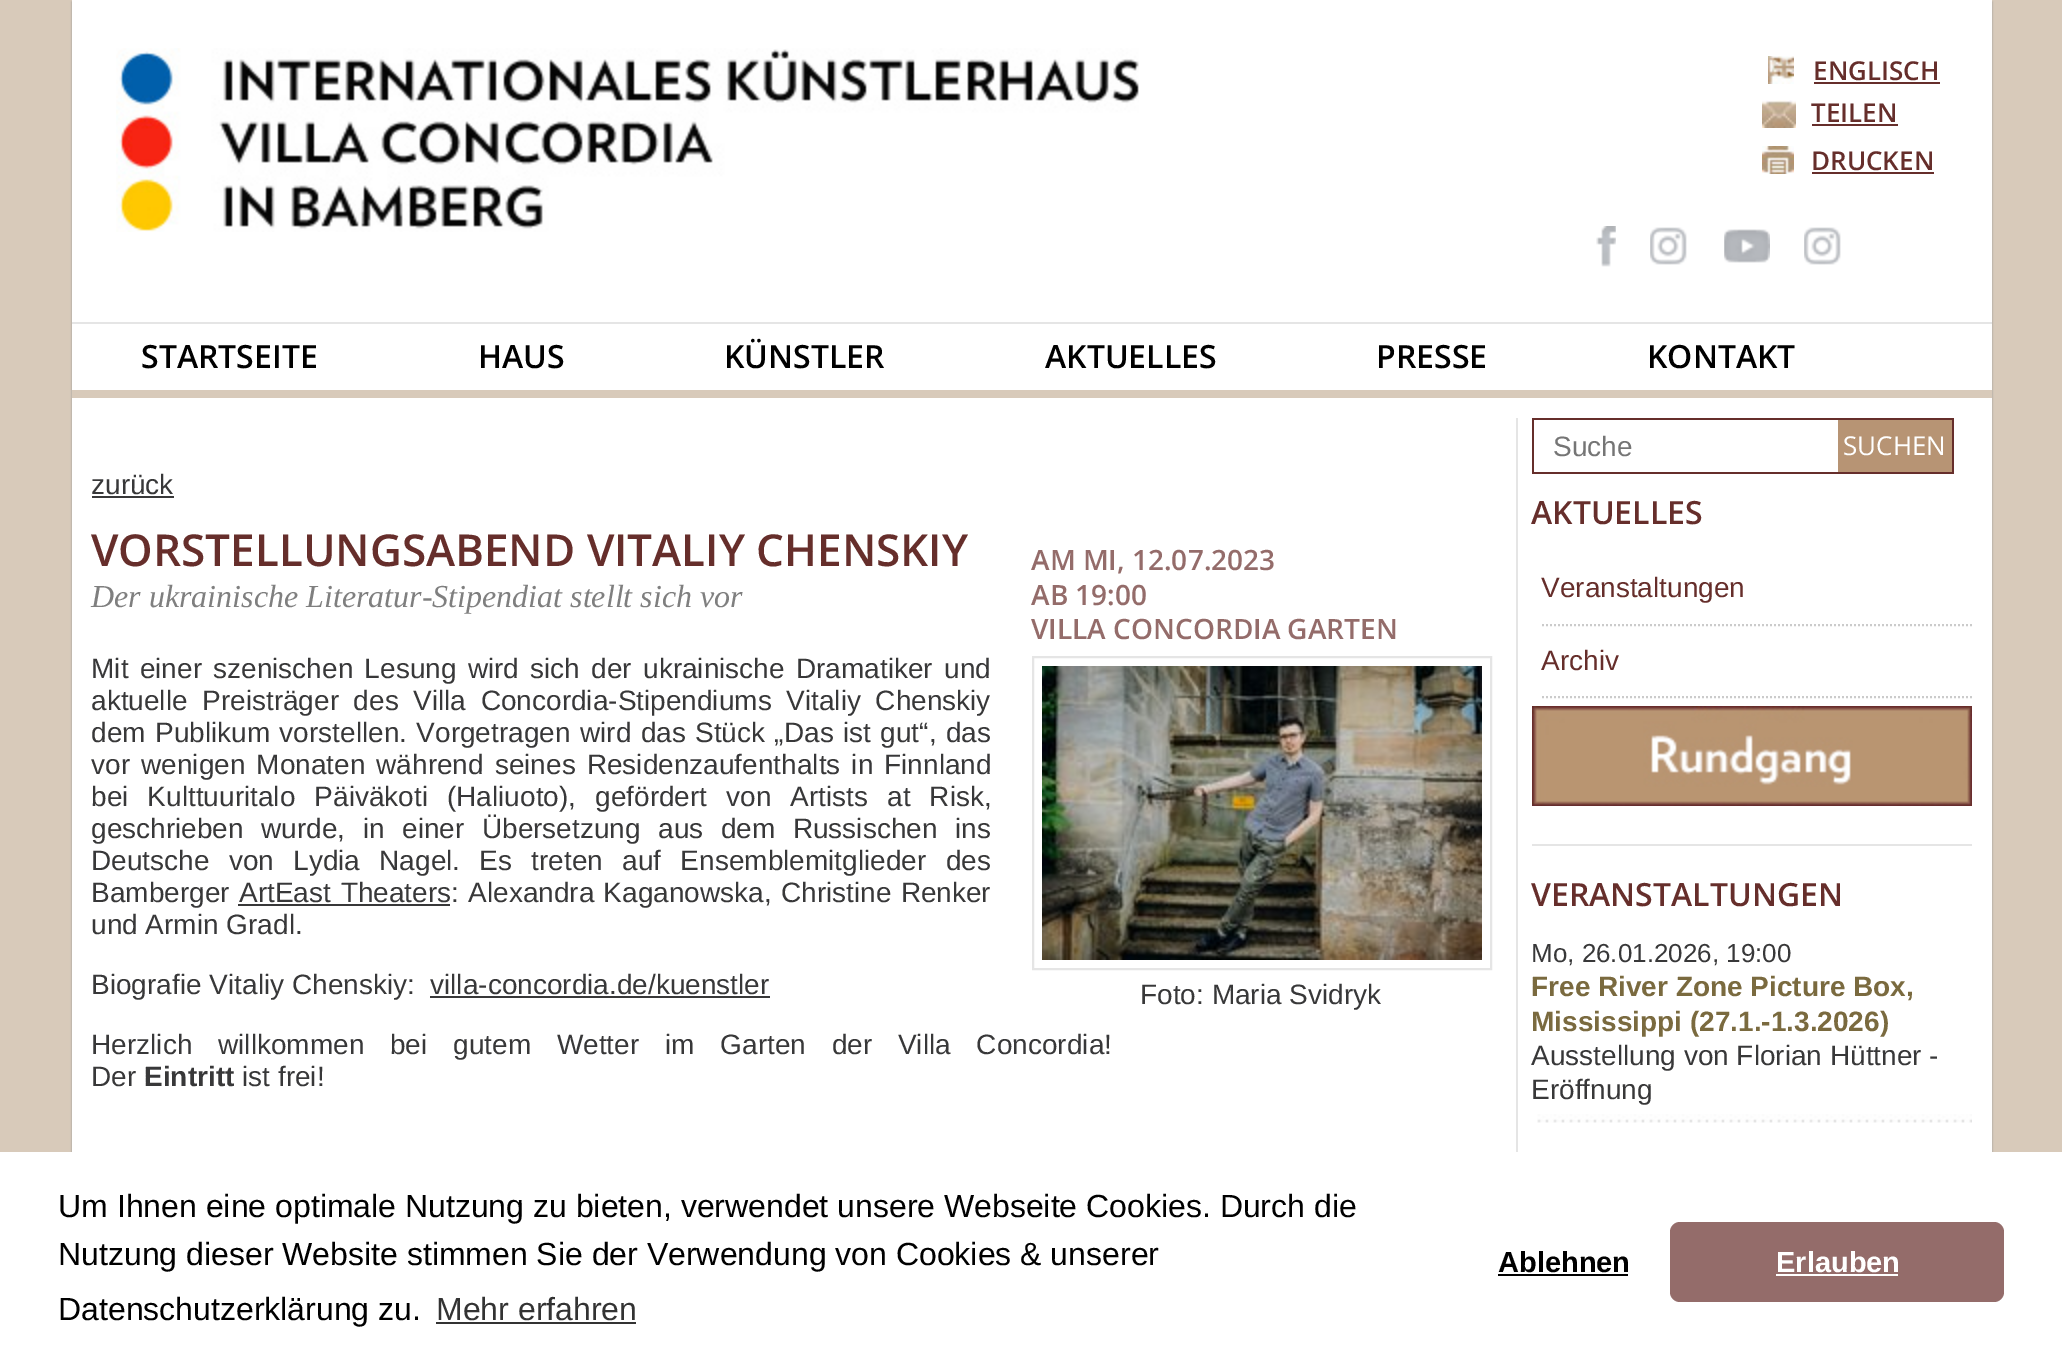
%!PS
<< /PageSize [2062 1371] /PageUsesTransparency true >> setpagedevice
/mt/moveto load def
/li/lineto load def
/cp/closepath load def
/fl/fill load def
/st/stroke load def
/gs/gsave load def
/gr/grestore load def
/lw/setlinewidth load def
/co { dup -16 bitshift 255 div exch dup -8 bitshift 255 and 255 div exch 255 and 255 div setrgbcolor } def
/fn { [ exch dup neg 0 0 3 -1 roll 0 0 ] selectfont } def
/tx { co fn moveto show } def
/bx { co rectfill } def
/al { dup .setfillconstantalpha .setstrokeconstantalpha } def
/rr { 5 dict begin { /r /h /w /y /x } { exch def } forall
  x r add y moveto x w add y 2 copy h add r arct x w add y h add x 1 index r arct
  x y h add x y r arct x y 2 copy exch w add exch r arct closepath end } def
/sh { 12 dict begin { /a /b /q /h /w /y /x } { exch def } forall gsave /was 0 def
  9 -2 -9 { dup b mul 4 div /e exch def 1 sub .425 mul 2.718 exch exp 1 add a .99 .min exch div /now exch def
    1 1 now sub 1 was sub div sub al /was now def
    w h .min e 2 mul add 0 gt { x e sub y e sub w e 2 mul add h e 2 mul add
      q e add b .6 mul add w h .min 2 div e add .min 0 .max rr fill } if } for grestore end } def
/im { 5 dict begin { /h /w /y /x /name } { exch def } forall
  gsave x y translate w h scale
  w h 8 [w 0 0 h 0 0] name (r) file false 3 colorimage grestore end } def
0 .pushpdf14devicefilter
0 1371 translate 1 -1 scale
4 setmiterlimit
0 0 2062 1371 16#D8CABA bx
gs
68 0 mt 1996 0 li 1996 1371 li 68 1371 li cp 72 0 mt 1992 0 li 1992 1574 li 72 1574 li cp eoclip newpath
16#8F8F8F co
72 2 1920 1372 0 1 1 sh
gr
72 0 1920 322 16#FFFFFF bx
(media/1.raw) 116 48 1023 184 im
(media/2.raw) 1768 56 26 28 im
1814 82 126 2 16#662E2B bx
(media/3.raw) 1762 100 34 28 im
1812 124 86 2 16#662E2B bx
(media/4.raw) 1762 146 32 28 im
1812 172 122 2 16#662E2B bx
(media/5.raw) 1596 226 20 41 im
(media/6.raw) 1650 227 37 38 im
(media/7.raw) 1724 229 46 34 im
(media/6.raw) 1804 227 37 38 im
72 324 1920 66 16#FFFFFF bx
72 322 1920 2 16#E5E5E5 bx
72 398 1920 754 16#FFFFFF bx
92 496 82 2 16#383839 bx
238 904 212 2 16#383839 bx
430 996 340 2 16#383839 bx
16#E5E5E5 co
2 lw
1033 657 458 312 rectstroke
(media/8.raw) 1042 666 440 294 im
1516 418 2 734 16#E5E5E5 bx
1532 418 422 2 16#662E2B bx
1532 472 312 2 16#662E2B bx
1532 418 2 56 16#662E2B bx
1838 420 114 52 16#B79474 bx
1952 418 2 56 16#662E2B bx
1838 472 116 2 16#662E2B bx
16#CBCBCB co
[2 2] 0 setdash
1542 625 mt 1972 625 li st
1542 697 mt 1972 697 li st
(media/9.raw) 1532 706 440 100 im
1532 844 440 2 16#E5E5E5 bx
(media/10.raw) 1537 1114 435 9 im
0 1152 2062 219 16#FFFFFF bx
436 1322 200 2 16#333333 bx
1498 1274 130 2 16#000000 bx
16#946C6A co
1670 1222 334 80 10 rr fl
1776 1274 122 2 16#FFFFFF bx
(ENGLISCH) 1813 80 /OpenSans-SemiBold 26 16#662E2B tx
(TEILEN) 1811 122 /OpenSans-SemiBold 26 16#662E2B tx
(DRUCKEN) 1811 170 /OpenSans-SemiBold 26 16#662E2B tx
(STARTSEITE) 141 368 /OpenSans-SemiBold 32 16#000000 tx
(HAUS) 478 368 /OpenSans-SemiBold 32 16#000000 tx
(KÜNSTLER) 724 368 /OpenSans-SemiBold 32 16#000000 tx
(AKTUELLES) 1045 368 /OpenSans-SemiBold 32 16#000000 tx
(PRESSE) 1376 368 /OpenSans-SemiBold 32 16#000000 tx
(KONTAKT) 1647 368 /OpenSans-SemiBold 32 16#000000 tx
(zurück) 91 494 /LiberationSans-Regular 28 16#383839 tx
(VORSTELLUNGSABEND VITALIY CHENSKIY) 91 566 /OpenSans-SemiBold 44 16#662E2B tx
(Der ukrainische Literatur-Stipendiat stellt sich vor) 91 607 /LiberationSerif-Italic 32 16#7F7F7F tx
/LiberationSans-Regular 28 fn
16#383839 co
91 678 mt 3.5 0 32 (Mit einer szenischen Lesung wird sich der ukrainische Dramatiker und) widthshow
91 710 mt 6.75 0 32 (aktuelle Preisträger des Villa Concordia-Stipendiums Vitaliy Chenskiy) widthshow
91 742 mt 1.6 0 32 (dem Publikum vorstellen. Vorgetragen wird das Stück „Das ist gut“, das) widthshow
91 774 mt 3.25 0 32 (vor wenigen Monaten während seines Residenzaufenthalts in Finnland) widthshow
91 806 mt 11.25 0 32 (bei Kulttuuritalo Päiväkoti \(Haliuoto\), gefördert von Artists at Risk,) widthshow
91 838 mt 9.75 0 32 (geschrieben wurde, in einer Übersetzung aus dem Russischen ins) widthshow
91 870 mt 11.5 0 32 (Deutsche von Lydia Nagel. Es treten auf Ensemblemitglieder des) widthshow
(Bamberger) 91 902 /LiberationSans-Regular 28 16#383839 tx
239 902 mt 2 0 32 (ArtEast Theaters) widthshow
451 902 mt 1.5 0 32 (: Alexandra Kaganowska, Christine Renker) widthshow
(und Armin Gradl.) 91 934 /LiberationSans-Regular 28 16#383839 tx
(Biografie Vitaliy Chenskiy:) 91 994 /LiberationSans-Regular 28 16#383839 tx
(villa-concordia.de/kuenstler) 430 994 /LiberationSans-Regular 28 16#383839 tx
91 1054 mt 18 0 32 (Herzlich willkommen bei gutem Wetter im Garten der Villa Concordia!) widthshow
(Der) 91 1086 /LiberationSans-Regular 28 16#383839 tx
(Eintritt) 144 1086 /LiberationSans-Bold 28 16#383839 tx
(ist frei!) 242 1086 /LiberationSans-Regular 28 16#383839 tx
(AM MI, 12.07.2023) 1031 570 /OpenSans-SemiBold 28 16#946C6A tx
(AB 19:00) 1031 605 /OpenSans-SemiBold 28 16#946C6A tx
(VILLA CONCORDIA GARTEN) 1031 639 /OpenSans-SemiBold 28 16#946C6A tx
(Foto: Maria Svidryk) 1140 1004 /LiberationSans-Regular 28 16#383839 tx
(Suche) 1553 456 /LiberationSans-Regular 28 16#757575 tx
(SUCHEN) 1843 455 /OpenSans-Regular 26 16#FFFFFF tx
(AKTUELLES) 1531 524 /OpenSans-SemiBold 32 16#662E2B tx
(Veranstaltungen) 1541 597 /LiberationSans-Regular 28 16#662E2B tx
(Archiv) 1541 670 /LiberationSans-Regular 28 16#662E2B tx
(VERANSTALTUNGEN) 1531 906 /OpenSans-SemiBold 32 16#662E2B tx
(Mo, 26.01.2026, 19:00) 1531 962 /LiberationSans-Regular 26 16#383839 tx
(Free River Zone Picture Box,) 1531 996 /LiberationSans-Bold 28 16#7A6A3F tx
(Mississippi \(27.1.-1.3.2026\)) 1531 1031 /LiberationSans-Bold 28 16#7A6A3F tx
(Ausstellung von Florian Hüttner -) 1531 1065 /LiberationSans-Regular 28 16#383839 tx
(Eröffnung) 1531 1099 /LiberationSans-Regular 28 16#383839 tx
(Um Ihnen eine optimale Nutzung zu bieten, verwendet unsere Webseite Cookies. Durch die) 58 1217 /LiberationSans-Regular 32 16#000000 tx
(Nutzung dieser Website stimmen Sie der Verwendung von Cookies & unserer) 58 1265 /LiberationSans-Regular 32 16#000000 tx
(Datenschutzerklärung zu.) 58 1320 /LiberationSans-Regular 32 16#000000 tx
(Mehr erfahren) 436 1320 /LiberationSans-Regular 32 16#333333 tx
(Ablehnen) 1498 1272 /LiberationSans-Bold 29 16#000000 tx
(Erlauben) 1776 1272 /LiberationSans-Bold 29 16#FFFFFF tx
.poppdf14devicefilter showpage
